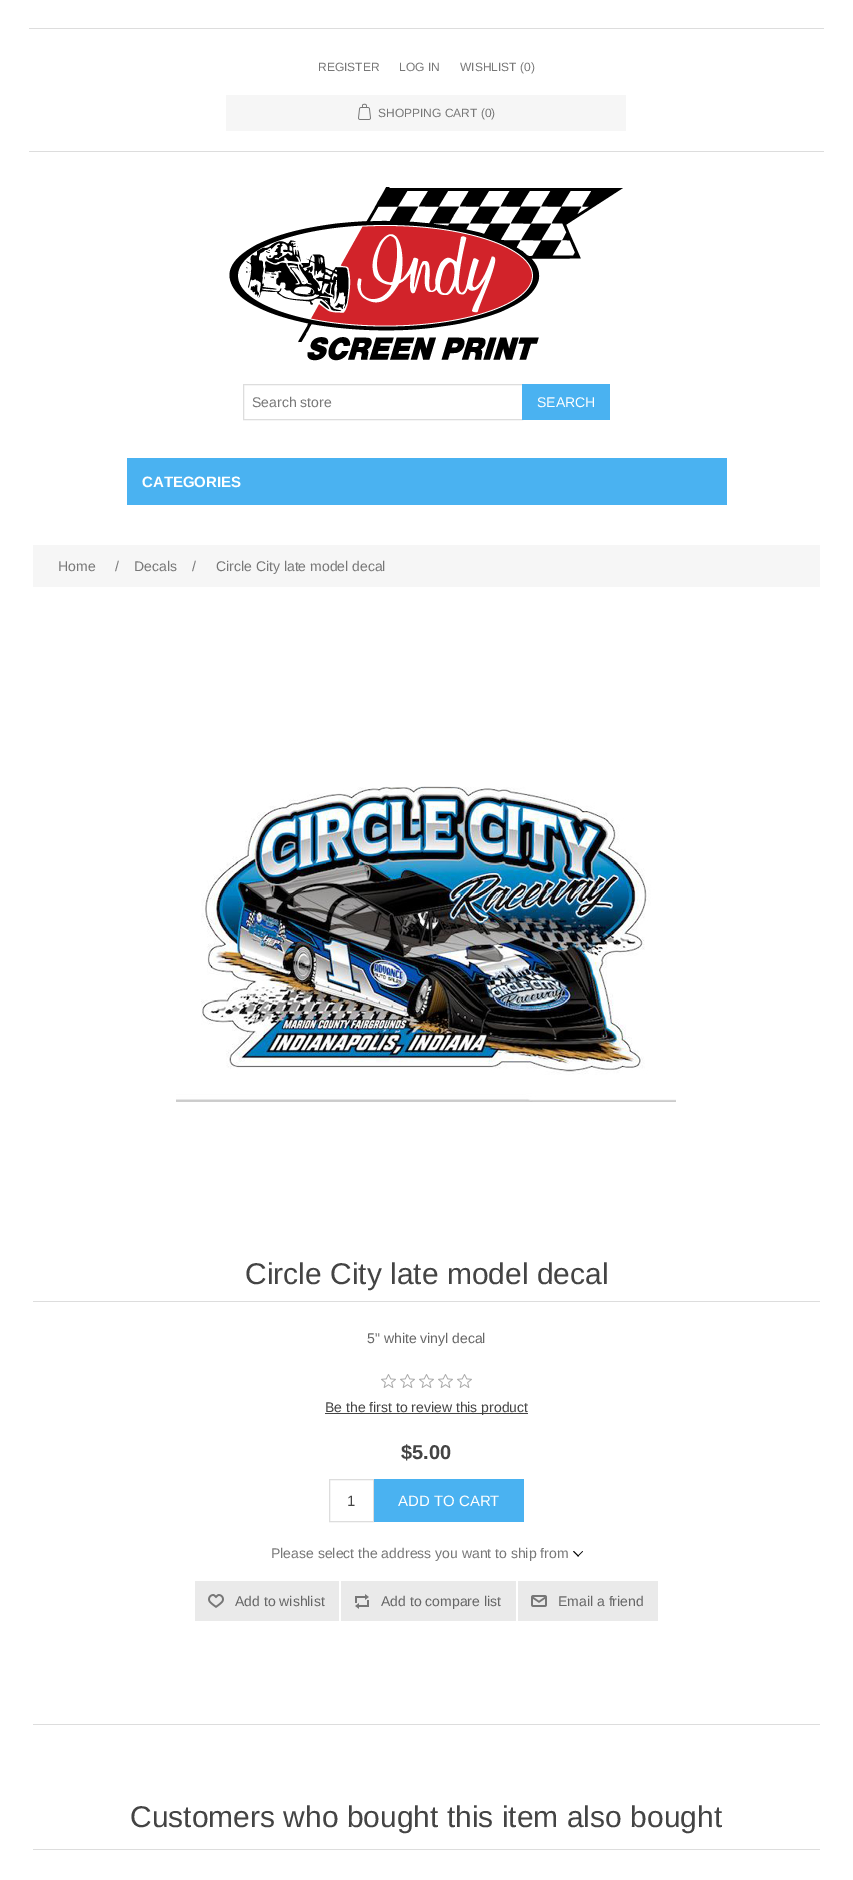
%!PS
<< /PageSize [853 1880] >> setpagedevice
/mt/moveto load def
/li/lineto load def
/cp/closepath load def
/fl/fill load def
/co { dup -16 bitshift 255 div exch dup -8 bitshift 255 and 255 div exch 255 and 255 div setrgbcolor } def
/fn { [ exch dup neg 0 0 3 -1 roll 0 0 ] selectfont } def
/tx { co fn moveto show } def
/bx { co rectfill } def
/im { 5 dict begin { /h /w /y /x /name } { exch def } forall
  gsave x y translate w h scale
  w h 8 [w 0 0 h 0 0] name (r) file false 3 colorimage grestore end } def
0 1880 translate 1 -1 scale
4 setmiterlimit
0 0 853 1880 16#FFFFFF bx
29 151 795 1 16#DDDDDD bx
29 28 795 1 16#DDDDDD bx
226 95 400 36 16#F6F6F6 bx
(media/1.raw) 358 103 13 17 im
(media/2.raw) 229 187 394 174 im
16#DDDDDD co
243.5 384.5 279 35 rectstroke
522 384 88 36 16#4AB2F1 bx
127 458 600 47 16#4AB2F1 bx
33 545 787 42 16#F6F6F6 bx
33 1724 787 1 16#DDDDDD bx
(media/3.raw) 176 786 500 316 im
33 1301 787 1 16#DDDDDD bx
(media/4.raw) 381 1374 91 14 im
325 1413 203 1 16#444444 bx
16#DDDDDD co
329.5 1479.5 44 42 rectstroke
374 1479 150 43 16#4AB2F1 bx
16#000000 co
582.5 1551 mt 583 1551.5 li 578 1556.5 li 577.5 1556 li cp fl
574 1551 mt 579 1556 li 578 1556.5 li 573 1551.5 li cp fl
195 1581 144 40 16#EAEAEA bx
(media/5.raw) 208 1594 16 14 im
341 1581 175 40 16#EAEAEA bx
(media/6.raw) 355 1594 14 15 im
518 1581 140 40 16#EAEAEA bx
(media/7.raw) 531 1595 16 12 im
33 1849 787 1 16#DDDDDD bx
(REGISTER) 318 71 /LiberationSans-Regular 12 16#777777 tx
(LOG IN) 399 71 /LiberationSans-Regular 12 16#777777 tx
(WISHLIST \(0\)) 460 71 /LiberationSans-Regular 12 16#777777 tx
(SHOPPING CART \(0\)) 378 117 /LiberationSans-Regular 12 16#777777 tx
(Search store) 252 407 /LiberationSans-Regular 14 16#777777 tx
(SEARCH) 537 407 /LiberationSans-Regular 14 16#FFFFFF tx
(CATEGORIES) 142 487 /LiberationSans-Bold 15 16#FFFFFF tx
(Home) 58 571 /LiberationSans-Regular 14 16#777777 tx
(/) 115 571 /LiberationSans-Regular 14 16#777777 tx
(Decals) 134 571 /LiberationSans-Regular 14 16#777777 tx
(/) 192 571 /LiberationSans-Regular 14 16#777777 tx
(Circle City late model decal) 216 571 /LiberationSans-Regular 14 16#777777 tx
(Circle City late model decal) 245 1284 /LiberationSans-Regular 30 16#444444 tx
(5" white vinyl decal) 367 1343 /LiberationSans-Regular 14 16#666666 tx
(Be the first to review this product) 325 1412 /LiberationSans-Regular 14 16#444444 tx
($5.00) 401 1459 /LiberationSans-Bold 20 16#444444 tx
(1) 347 1506 /LiberationSans-Regular 15 16#444444 tx
(ADD TO CART) 398 1506 /LiberationSans-Regular 15 16#FFFFFF tx
(Please select the address you want to ship from) 271 1558 /LiberationSans-Regular 14 16#777777 tx
(Add to wishlist) 235 1606 /LiberationSans-Regular 14 16#666666 tx
(Add to compare list) 381 1606 /LiberationSans-Regular 14 16#666666 tx
(Email a friend) 558 1606 /LiberationSans-Regular 14 16#666666 tx
(Customers who bought this item also bought) 130 1827 /LiberationSans-Regular 30 16#444444 tx
showpage
